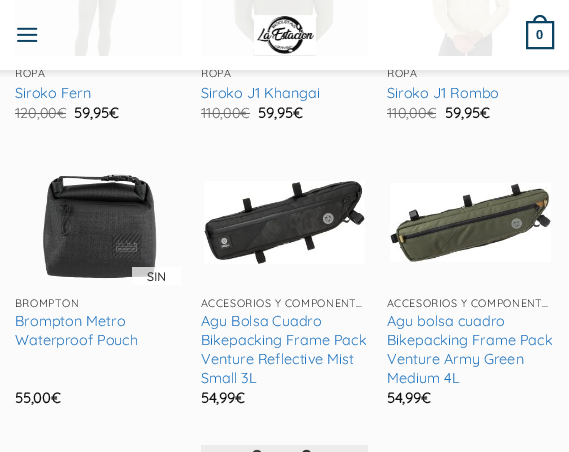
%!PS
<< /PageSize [569 452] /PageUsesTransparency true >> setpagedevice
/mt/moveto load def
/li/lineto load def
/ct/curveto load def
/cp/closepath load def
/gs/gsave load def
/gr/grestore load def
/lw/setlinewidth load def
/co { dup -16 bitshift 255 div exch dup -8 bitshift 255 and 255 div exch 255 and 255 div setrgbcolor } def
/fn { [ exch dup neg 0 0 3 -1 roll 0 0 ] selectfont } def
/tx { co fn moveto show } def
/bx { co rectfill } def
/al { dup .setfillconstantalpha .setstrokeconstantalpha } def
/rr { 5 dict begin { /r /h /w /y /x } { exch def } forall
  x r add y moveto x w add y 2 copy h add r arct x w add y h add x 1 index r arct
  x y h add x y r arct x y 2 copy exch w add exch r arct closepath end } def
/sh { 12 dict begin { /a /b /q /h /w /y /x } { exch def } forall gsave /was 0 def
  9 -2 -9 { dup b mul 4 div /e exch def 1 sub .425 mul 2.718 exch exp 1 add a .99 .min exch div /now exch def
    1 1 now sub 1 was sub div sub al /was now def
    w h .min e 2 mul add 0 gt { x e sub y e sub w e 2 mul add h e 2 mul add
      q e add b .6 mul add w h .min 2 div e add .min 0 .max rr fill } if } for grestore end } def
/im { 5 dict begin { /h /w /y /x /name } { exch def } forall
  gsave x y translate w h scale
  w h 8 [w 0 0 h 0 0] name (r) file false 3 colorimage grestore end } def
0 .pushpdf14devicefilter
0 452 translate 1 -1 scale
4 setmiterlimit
0 0 569 452 16#FBFBFB bx
(media/3.raw) 15 0 167 56 im
(media/4.raw) 201 0 167 56 im
(media/5.raw) 431 0 79 56 im
gs
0 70 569 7 rectclip
16#000000 co
1 1 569 70 0 5 .15 sh
gr
(media/6.raw) 43 174 114 105 im
0.74 al
132 267 50 18 16#FFFFFF bx
1 al
(media/7.raw) 204 181 161 83 im
(media/8.raw) 390 183 161 79 im
(media/9.raw) 201 445 167 7 im
/Quicksand-Light 10.75 fn
16#323232 co
15 77 mt .5 0 (ROPA) ashow
(Siroko Fern) 15 98 /Quicksand-Light 14.4 16#1E73BE tx
(120,00) 15 118 /Quicksand-Light 14.4 16#6F6F6F tx
15 113 42 1 16#646464 bx
(€) 57 118 /Quicksand-Light 14.4 16#6F6F6F tx
57 113 9 1 16#646464 bx
(59,95€) 74 118 /Quicksand-Bold 14.4 16#111111 tx
/Quicksand-Light 10.75 fn
16#323232 co
201 77 mt .5 0 (ROPA) ashow
(Siroko J1 Khangai) 201 98 /Quicksand-Light 14.4 16#1E73BE tx
(110,00€) 201 118 /Quicksand-Light 14.4 16#6F6F6F tx
201 113 49 1 16#646464 bx
(59,95€) 258 118 /Quicksand-Bold 14.4 16#111111 tx
/Quicksand-Light 10.75 fn
16#323232 co
387 77 mt .5 0 (ROPA) ashow
0.9 al
0 0 569 70 16#FFFFFF bx
1 al
16#0D4463 co
2 lw
527 22 26 26 rectstroke
540 15 mt 544.5 15 547 19 547 23 ct 533 23 li 533 19 535.5 15 540 15 ct cp 540 17 mt 543.5 17 545 20 545 23 ct 535 23 li 535 20 536.5 17 540 17 ct cp eofill
(0) 536 39 /LiberationSans-Bold 13 16#0D4463 tx
(media/1.raw) 17 27 21 15 im
(media/2.raw) 254 15 62 40 im
(Siroko J1 Rombo) 387 98 /Quicksand-Light 14.4 16#1E73BE tx
(110,00) 387 118 /Quicksand-Light 14.4 16#6F6F6F tx
387 113 40 1 16#646464 bx
(€) 427 118 /Quicksand-Light 14.4 16#6F6F6F tx
427 113 9 1 16#646464 bx
(59,95€) 445 118 /Quicksand-Bold 14.4 16#111111 tx
(SIN) 147 281 /Quicksand-Bold 12 16#323232 tx
/Quicksand-Light 10.75 fn
15 307 mt .5 0 (BROMPTON) ashow
(Brompton Metro) 15 326 /Quicksand-Light 14.4 16#1E73BE tx
(Waterproof Pouch) 15 345 /Quicksand-Light 14.4 16#1E73BE tx
(55,00€) 15 403 /Quicksand-Bold 14.4 16#111111 tx
/Quicksand-Light 10.75 fn
16#323232 co
201 307 mt .5 0 (ACCESORIOS Y COMPONENT…) ashow
(Agu Bolsa Cuadro) 201 326 /Quicksand-Light 14.4 16#1E73BE tx
(Bikepacking Frame Pack) 201 345 /Quicksand-Light 14.4 16#1E73BE tx
(Venture Reflective Mist) 201 364 /Quicksand-Light 14.4 16#1E73BE tx
(Small 3L) 201 383 /Quicksand-Light 14.4 16#1E73BE tx
(54,99€) 201 403 /Quicksand-Bold 14.4 16#111111 tx
/Quicksand-Light 10.75 fn
16#323232 co
387 307 mt .5 0 (ACCESORIOS Y COMPONENT…) ashow
(Agu bolsa cuadro) 387 326 /Quicksand-Light 14.4 16#1E73BE tx
(Bikepacking Frame Pack) 387 345 /Quicksand-Light 14.4 16#1E73BE tx
(Venture Army Green) 387 364 /Quicksand-Light 14.4 16#1E73BE tx
(Medium 4L) 387 383 /Quicksand-Light 14.4 16#1E73BE tx
(54,99€) 387 403 /Quicksand-Bold 14.4 16#111111 tx
.poppdf14devicefilter showpage
